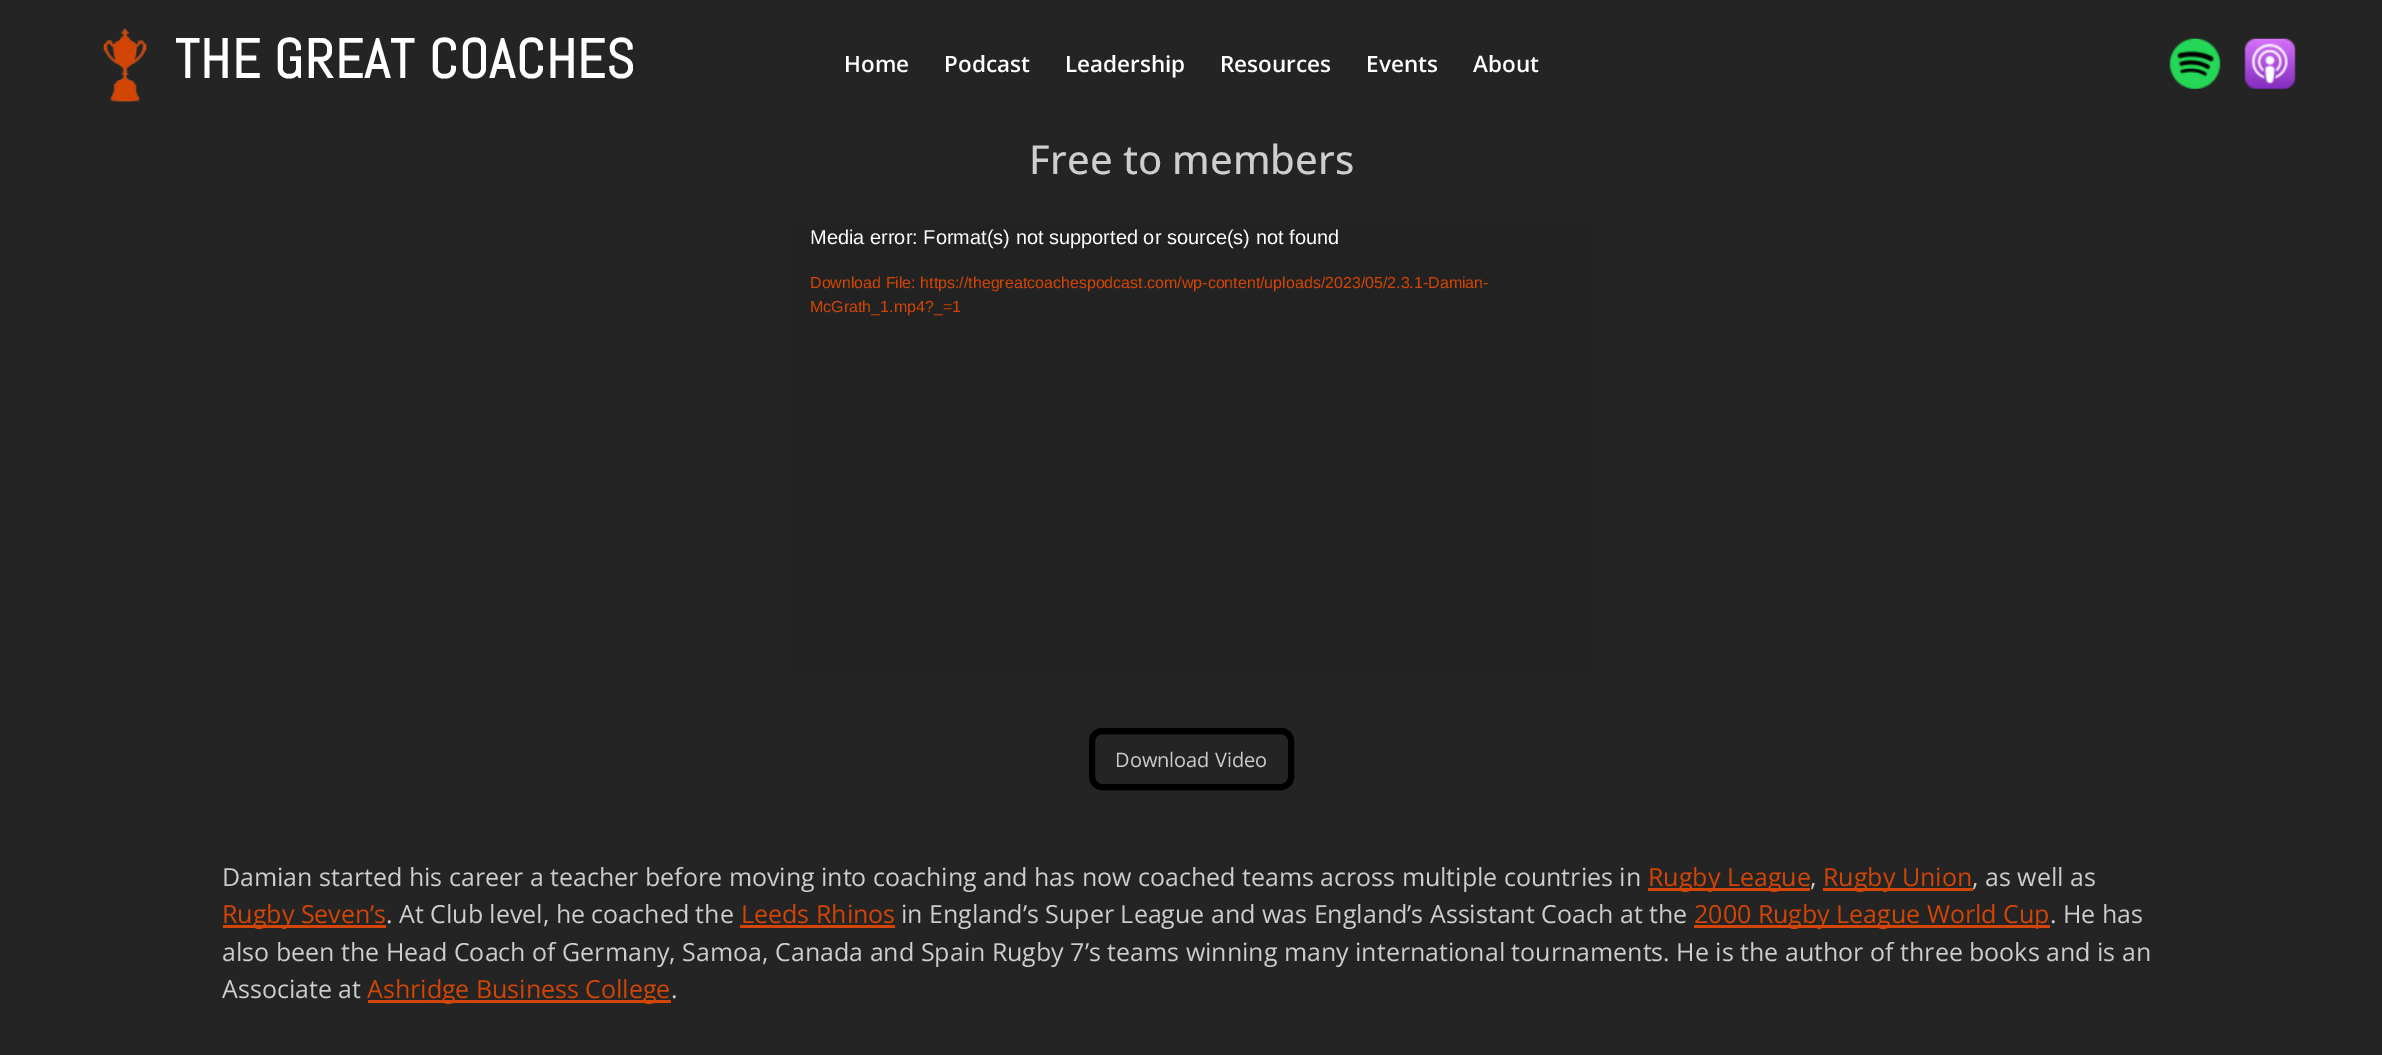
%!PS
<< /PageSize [2382 1055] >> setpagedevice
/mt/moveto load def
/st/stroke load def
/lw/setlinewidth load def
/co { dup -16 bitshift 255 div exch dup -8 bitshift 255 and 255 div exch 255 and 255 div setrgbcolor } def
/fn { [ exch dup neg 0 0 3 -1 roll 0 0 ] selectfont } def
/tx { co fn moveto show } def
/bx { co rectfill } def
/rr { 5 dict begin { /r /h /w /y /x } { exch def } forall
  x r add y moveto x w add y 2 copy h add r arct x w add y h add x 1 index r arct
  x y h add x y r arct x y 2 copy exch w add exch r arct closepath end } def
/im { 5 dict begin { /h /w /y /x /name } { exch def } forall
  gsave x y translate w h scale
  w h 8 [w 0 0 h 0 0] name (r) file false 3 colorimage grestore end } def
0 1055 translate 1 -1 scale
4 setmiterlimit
0 0 2382 1055 16#252424 bx
(media/1.raw) 103 28 44 75 im
(media/2.raw) 2169 38 52 51 im
(media/3.raw) 2244 38 52 51 im
791 223 800 450 16#222222 bx
16#000000 co
6 lw
1092 731 199 56 10 rr st
1648 888 162 3 16#D34505 bx
1823 888 150 3 16#D34505 bx
223 925 163 3 16#D34505 bx
740 925 155 3 16#D34505 bx
1694 925 356 3 16#D34505 bx
368 1000 303 3 16#D34505 bx
/Abel-Bold 55 fn
16#FFFFFF co
175 78 mt 1 0 (THE GREAT COACHES) ashow
(Home) 844 72 /OpenSans-SemiBold 22.5 16#FFFFFF tx
(Podcast) 944 72 /OpenSans-SemiBold 22.5 16#FFFFFF tx
(Leadership) 1065 72 /OpenSans-SemiBold 22.5 16#FFFFFF tx
(Resources) 1220 72 /OpenSans-SemiBold 22.5 16#FFFFFF tx
(Events) 1366 72 /OpenSans-SemiBold 22.5 16#FFFFFF tx
(About) 1473 72 /OpenSans-SemiBold 22.5 16#FFFFFF tx
(Free to members) 1029 174 /OpenSans-Medium 40 16#CECECE tx
(Media error: Format\(s\) not supported or source\(s\) not found) 810 244 /LiberationSans-Regular 20 16#FFFFFF tx
(Download File: https://thegreatcoachespodcast.com/wp-content/uploads/2023/05/2.3.1-Damian-) 810 288 /LiberationSans-Regular 16 16#D34505 tx
(McGrath_1.mp4?_=1) 810 312 /LiberationSans-Regular 16 16#D34505 tx
(Download Video) 1115 767 /OpenSans-Regular 20 16#CECECE tx
(Damian started his career a teacher before moving into coaching and has now coached teams across multiple countries in) 222 886 /OpenSans-Regular 25 16#CECECE tx
(Rugby League) 1648 886 /OpenSans-Regular 25 16#D34505 tx
(,) 1810 886 /OpenSans-Regular 25 16#CECECE tx
(Rugby Union) 1823 886 /OpenSans-Regular 25 16#D34505 tx
(, as well as) 1972 886 /OpenSans-Regular 25 16#CECECE tx
(Rugby Seven’s) 222 923 /OpenSans-Regular 25 16#D34505 tx
(. At Club level, he coached the) 386 923 /OpenSans-Regular 25 16#CECECE tx
(Leeds Rhinos) 741 923 /OpenSans-Regular 25 16#D34505 tx
(in England’s Super League and was England’s Assistant Coach at the) 901 923 /OpenSans-Regular 25 16#CECECE tx
(2000 Rugby League World Cup) 1694 923 /OpenSans-Regular 25 16#D34505 tx
(. He has) 2050 923 /OpenSans-Regular 25 16#CECECE tx
(also been the Head Coach of Germany, Samoa, Canada and Spain Rugby 7’s teams winning many international tournaments. He is the author of three books and is an) 222 961 /OpenSans-Regular 25 16#CECECE tx
(Associate at) 222 998 /OpenSans-Regular 25 16#CECECE tx
(Ashridge Business College) 367 998 /OpenSans-Regular 25 16#D34505 tx
(.) 671 998 /OpenSans-Regular 25 16#CECECE tx
showpage
